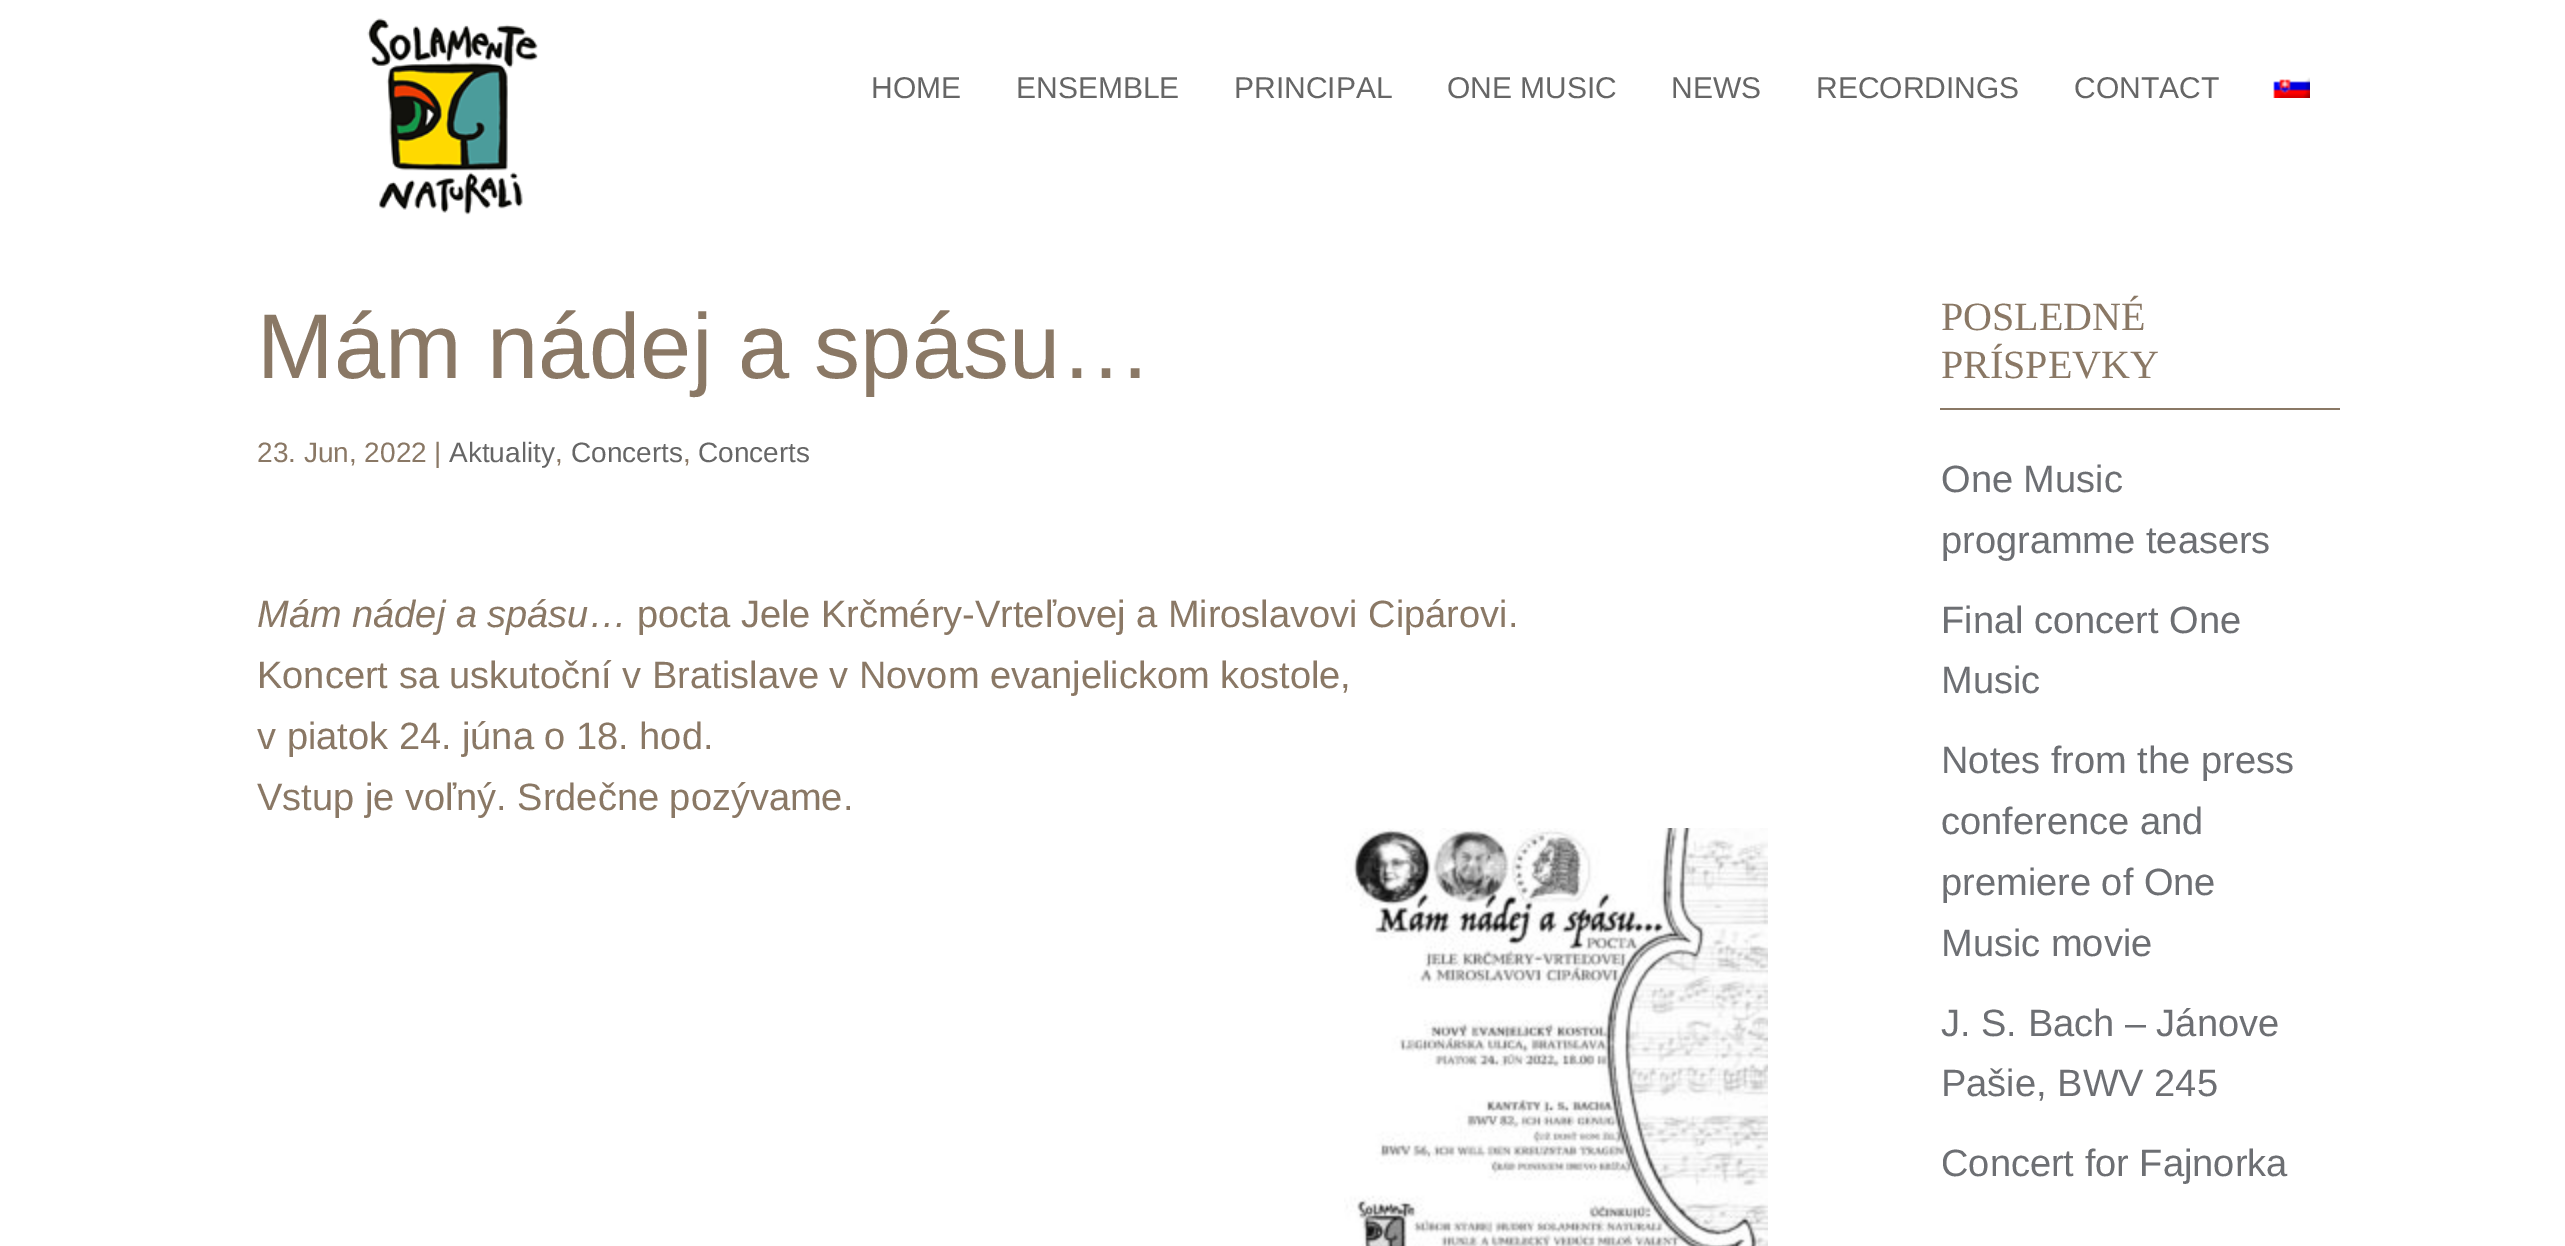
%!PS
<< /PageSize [2565 1246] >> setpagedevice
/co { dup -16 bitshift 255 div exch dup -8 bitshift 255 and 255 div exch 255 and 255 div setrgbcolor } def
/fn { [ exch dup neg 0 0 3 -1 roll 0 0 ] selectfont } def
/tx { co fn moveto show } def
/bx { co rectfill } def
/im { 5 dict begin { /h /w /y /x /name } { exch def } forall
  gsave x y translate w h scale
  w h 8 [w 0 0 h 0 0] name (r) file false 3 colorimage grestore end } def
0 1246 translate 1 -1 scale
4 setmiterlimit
0 0 2565 1246 16#FFFFFF bx
(media/1.raw) 367 18 171 197 im
(media/2.raw) 2273 77 37 21 im
(media/3.raw) 1344 828 424 418 im
1940 408 400 2 16#8A7865 bx
(HOME) 871 98 /LiberationSans-Regular 30 16#666666 tx
(ENSEMBLE) 1016 98 /LiberationSans-Regular 30 16#666666 tx
(PRINCIPAL) 1234 98 /LiberationSans-Regular 30 16#666666 tx
(ONE MUSIC) 1447 98 /LiberationSans-Regular 30 16#666666 tx
(NEWS) 1671 98 /LiberationSans-Regular 30 16#666666 tx
(RECORDINGS) 1816 98 /LiberationSans-Regular 30 16#666666 tx
(CONTACT) 2074 98 /LiberationSans-Regular 30 16#666666 tx
(Mám nádej a spásu…) 257 378 /LiberationSans-Regular 92 16#8A7865 tx
(23. Jun, 2022 |) 257 462 /LiberationSans-Regular 28 16#8A7865 tx
(Aktuality) 449 462 /LiberationSans-Regular 28 16#666666 tx
(,) 555 462 /LiberationSans-Regular 28 16#8A7865 tx
(Concerts) 571 462 /LiberationSans-Regular 28 16#666666 tx
(,) 683 462 /LiberationSans-Regular 28 16#8A7865 tx
(Concerts) 698 462 /LiberationSans-Regular 28 16#666666 tx
(Mám nádej a spásu…) 257 627 /LiberationSans-Italic 38 16#8A7865 tx
(pocta Jele Krčméry-Vrteľovej a Miroslavovi Cipárovi.) 637 627 /LiberationSans-Regular 38 16#8A7865 tx
(Koncert sa uskutoční v Bratislave v Novom evanjelickom kostole,) 257 688 /LiberationSans-Regular 38 16#8A7865 tx
(v piatok 24. júna o 18. hod.) 257 749 /LiberationSans-Regular 38 16#8A7865 tx
(Vstup je voľný. Srdečne pozývame.) 257 810 /LiberationSans-Regular 38 16#8A7865 tx
(POSLEDNÉ) 1941 330 /LiberationSerif-Regular 40 16#8A7865 tx
(PRÍSPEVKY) 1941 378 /LiberationSerif-Regular 40 16#8A7865 tx
(One Music) 1941 492 /LiberationSans-Regular 38 16#6D6F73 tx
(programme teasers) 1941 553 /LiberationSans-Regular 38 16#6D6F73 tx
(Final concert One) 1941 633 /LiberationSans-Regular 38 16#6D6F73 tx
(Music) 1941 693 /LiberationSans-Regular 38 16#6D6F73 tx
(Notes from the press) 1941 773 /LiberationSans-Regular 38 16#6D6F73 tx
(conference and) 1941 834 /LiberationSans-Regular 38 16#6D6F73 tx
(premiere of One) 1941 895 /LiberationSans-Regular 38 16#6D6F73 tx
(Music movie) 1941 956 /LiberationSans-Regular 38 16#6D6F73 tx
(J. S. Bach – Jánove) 1941 1036 /LiberationSans-Regular 38 16#6D6F73 tx
(Pašie, BWV 245) 1941 1096 /LiberationSans-Regular 38 16#6D6F73 tx
(Concert for Fajnorka) 1941 1176 /LiberationSans-Regular 38 16#6D6F73 tx
showpage
